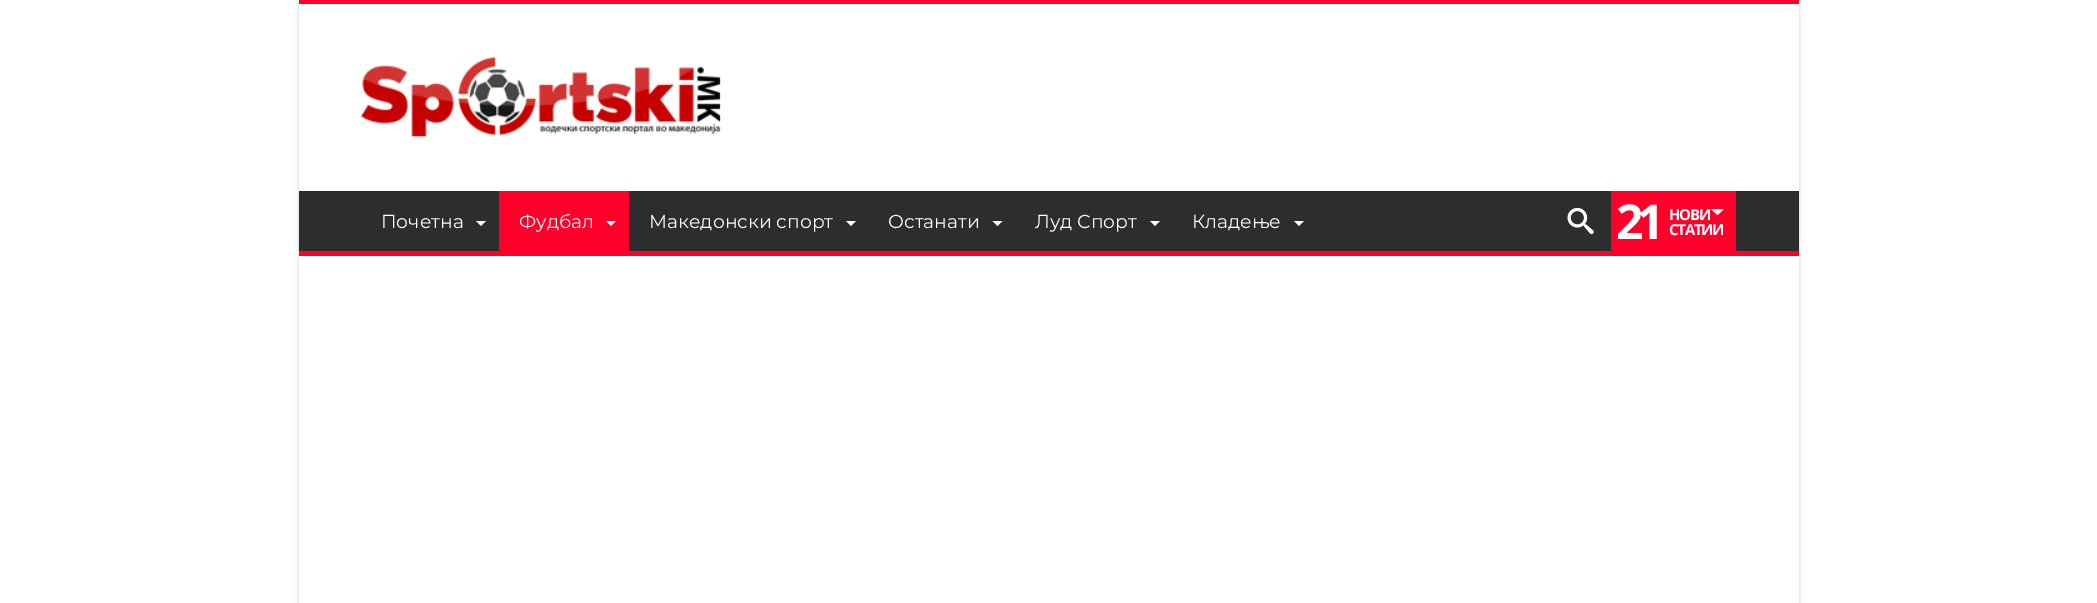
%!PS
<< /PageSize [2097 603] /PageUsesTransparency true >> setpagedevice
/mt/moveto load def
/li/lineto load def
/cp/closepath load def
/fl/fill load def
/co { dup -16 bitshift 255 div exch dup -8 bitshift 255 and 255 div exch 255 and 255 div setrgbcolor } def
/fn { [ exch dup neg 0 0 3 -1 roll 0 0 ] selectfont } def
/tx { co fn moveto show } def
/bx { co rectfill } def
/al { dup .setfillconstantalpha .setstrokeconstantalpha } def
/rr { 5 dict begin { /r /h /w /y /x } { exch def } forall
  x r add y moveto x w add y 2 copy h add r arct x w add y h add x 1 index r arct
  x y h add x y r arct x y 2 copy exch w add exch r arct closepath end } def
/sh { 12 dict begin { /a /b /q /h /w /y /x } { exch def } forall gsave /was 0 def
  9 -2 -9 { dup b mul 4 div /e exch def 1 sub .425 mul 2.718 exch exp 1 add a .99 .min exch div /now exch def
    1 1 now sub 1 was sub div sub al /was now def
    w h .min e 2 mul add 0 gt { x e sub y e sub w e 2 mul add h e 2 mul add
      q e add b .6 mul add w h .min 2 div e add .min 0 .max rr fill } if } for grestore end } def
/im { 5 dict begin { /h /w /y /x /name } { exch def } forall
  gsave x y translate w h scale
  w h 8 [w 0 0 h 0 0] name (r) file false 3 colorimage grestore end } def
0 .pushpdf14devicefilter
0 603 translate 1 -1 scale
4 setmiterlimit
0 0 2097 603 16#FFFFFF bx
16#000000 co
299 0 1500 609 0 2 .2 sh
299 4 1500 599 16#FFFFFF bx
299 0 1500 4 16#FF002B bx
(media/1.raw) 361 57 360 80 im
299 251 1500 5 16#FF002B bx
299 191 1500 60 16#2D2D2D bx
16#FFFFFF co
476 221 mt 486 221 li 481 226 li cp fl
499 191 130 60 16#FF002B bx
16#FFFFFF co
606 221 mt 616 221 li 611 226 li cp fl
846 221 mt 856 221 li 851 226 li cp fl
992.5 221 mt 1002.5 221 li 997.5 226 li cp fl
1150 221 mt 1160 221 li 1155 226 li cp fl
1294 221 mt 1304 221 li 1299 226 li cp fl
(media/2.raw) 1567 207 27 28 im
1611 191 125 60 16#FF002B bx
16#FFFFFF co
1711 209 mt 1724 209 li 1717.5 215 li cp fl
(Почетна) 381 228 /Montserrat-Regular 18.75 16#FFFFFF tx
(Фудбал) 519 228 /Montserrat-Regular 18.75 16#FFFFFF tx
(Македонски спорт) 649 228 /Montserrat-Regular 18.75 16#FFFFFF tx
(Останати) 888 228 /Montserrat-Regular 18.75 16#FFFFFF tx
(Луд Спорт) 1035 228 /Montserrat-Regular 18.75 16#FFFFFF tx
(Кладење) 1192 228 /Montserrat-Regular 18.75 16#FFFFFF tx
/OpenSans-Bold 48 fn
1616 239 mt -6 0 (21) ashow
/OpenSans-Bold 15 fn
1669 220 mt -1.25 0 (НОВИ) ashow
1669 235 mt -1.25 0 (СТАТИИ) ashow
.poppdf14devicefilter showpage
